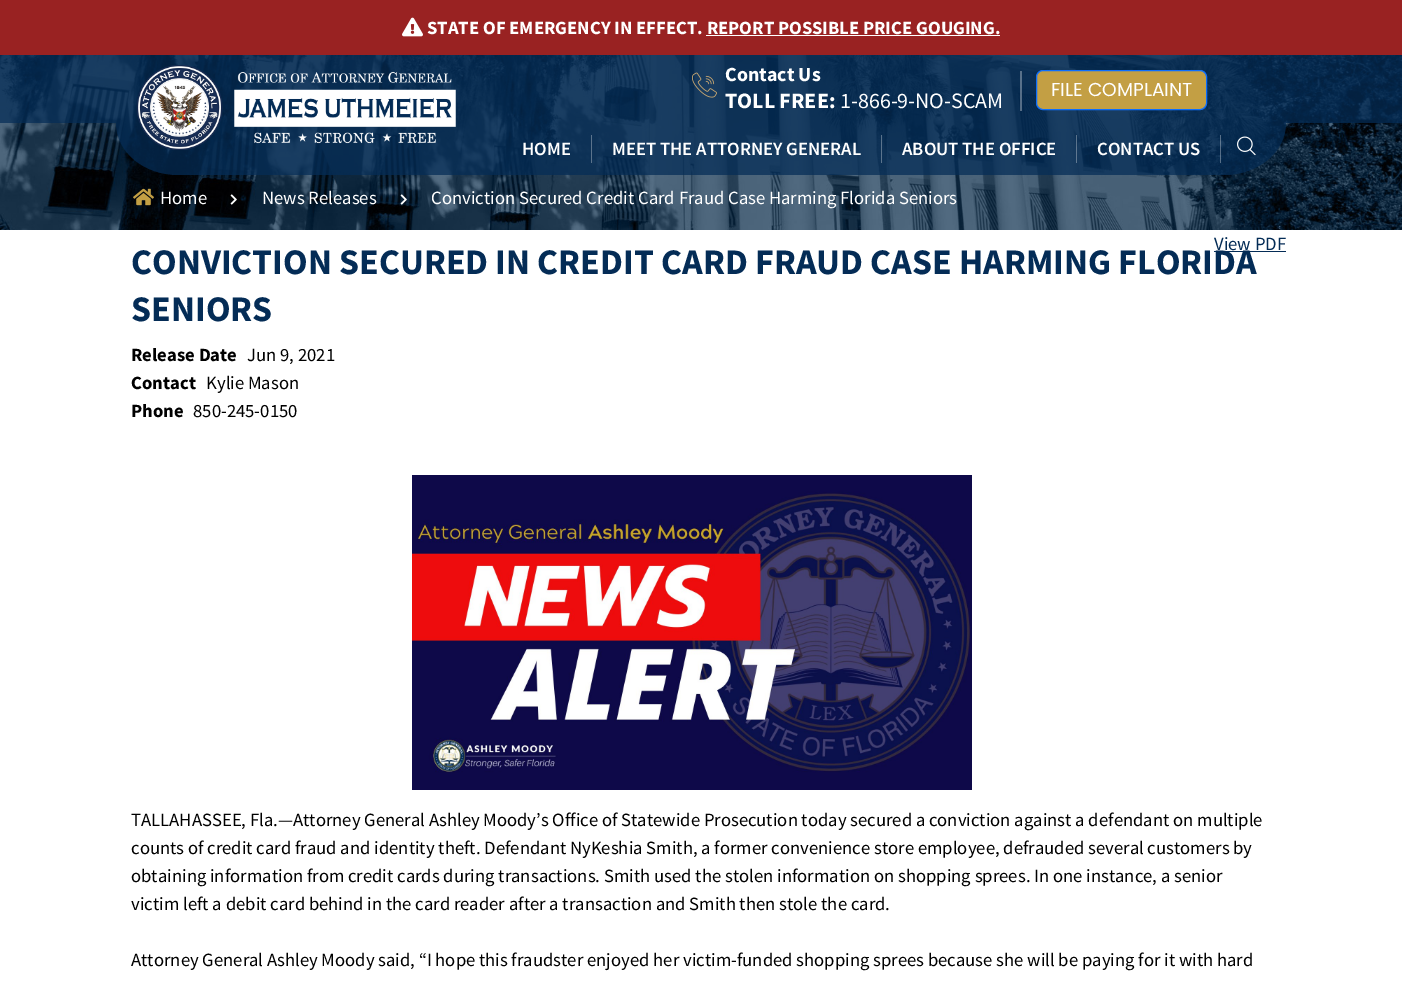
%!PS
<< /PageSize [1402 988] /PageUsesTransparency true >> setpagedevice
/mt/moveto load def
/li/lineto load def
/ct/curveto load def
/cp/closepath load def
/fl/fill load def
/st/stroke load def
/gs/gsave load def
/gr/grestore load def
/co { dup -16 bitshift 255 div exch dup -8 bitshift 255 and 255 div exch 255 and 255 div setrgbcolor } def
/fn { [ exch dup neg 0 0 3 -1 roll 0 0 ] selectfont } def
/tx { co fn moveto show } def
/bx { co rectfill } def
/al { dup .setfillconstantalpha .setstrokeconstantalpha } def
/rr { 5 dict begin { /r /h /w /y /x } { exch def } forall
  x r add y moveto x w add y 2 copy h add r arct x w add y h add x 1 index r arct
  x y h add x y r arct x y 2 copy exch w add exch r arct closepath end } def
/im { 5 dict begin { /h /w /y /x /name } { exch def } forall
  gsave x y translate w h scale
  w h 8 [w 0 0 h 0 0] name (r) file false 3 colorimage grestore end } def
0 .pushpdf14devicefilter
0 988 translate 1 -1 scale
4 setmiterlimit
0 0 1402 988 16#FFFFFF bx
0 0 1402 55 16#992222 bx
(media/1.raw) 402 17 21 20 im
706 35 294 1 16#FFFFFF bx
(media/2.raw) 0 55 1402 175 im
0.73 al
0 55 1402 68 16#042C56 bx
1 al
(media/3.raw) 692 72 25 26 im
0.32 al
1020 71 2 40 16#FFFFFF bx
1 al
16#C39F44 co
1036.5 70.5 170 39 6.5 rr gs fl gr
16#0D6EFD co
st
0.73 al
16#042C56 co
116 123 mt 1286 123 li 1286 152 1258 175 1224 175 ct 178 175 li 144 175 116 152 116 123 ct cp fl
1 al
(media/4.raw) 136 65 320 85 im
591 135 1 28 16#5B738C bx
0.32 al
881 135 1 28 16#FFFFFF bx
1076 135 1 28 16#FFFFFF bx
1220 135 1 28 16#FFFFFF bx
1 al
(media/5.raw) 1237 136 19 20 im
(media/6.raw) 133 188 21 18 im
(media/7.raw) 230 194 7 11 im
(media/8.raw) 400 194 7 11 im
1214 251 72 1 16#042C56 bx
(media/9.raw) 412 475 560 315 im
(STATE OF EMERGENCY IN EFFECT. REPORT POSSIBLE PRICE GOUGING.) 427 34 /SourceSansPro-Bold 18.67 16#FFFFFF tx
(Contact Us) 725 81 /SourceSansPro-Bold 20 16#FFFFFF tx
(TOLL FREE:) 725 108 /SourceSansPro-Bold 22 16#FFFFFF tx
(1-866-9-NO-SCAM) 840 108 /SourceSansPro-Regular 22 16#FFFFFF tx
(FILE COMPLAINT) 1051 96 /Poppins-Regular 18.67 16#FFFFFF tx
(HOME) 522 155 /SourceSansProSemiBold-SemiBold 18.67 16#FFFFFF tx
(MEET THE ATTORNEY GENERAL) 612 155 /SourceSansProSemiBold-SemiBold 18.67 16#FFFFFF tx
(ABOUT THE OFFICE) 902 155 /SourceSansProSemiBold-SemiBold 18.67 16#FFFFFF tx
(CONTACT US) 1097 155 /SourceSansProSemiBold-SemiBold 18.67 16#FFFFFF tx
(Home) 160 204 /SourceSansPro-Regular 18.67 16#FFFFFF tx
(News Releases) 262 204 /SourceSansPro-Regular 18.67 16#FFFFFF tx
(Conviction Secured Credit Card Fraud Case Harming Florida Seniors) 431 204 /SourceSansPro-Regular 18.67 16#FFFFFF tx
(View PDF) 1214 250 /SourceSansPro-Regular 18.67 16#042C56 tx
(Release Date) 131 361 /SourceSansPro-Bold 18.67 16#000000 tx
(Jun 9, 2021) 247 361 /SourceSansPro-Regular 18.67 16#000000 tx
(Contact) 131 389 /SourceSansPro-Bold 18.67 16#000000 tx
(Kylie Mason) 206 389 /SourceSansPro-Regular 18.67 16#000000 tx
(Phone) 131 417 /SourceSansPro-Bold 18.67 16#000000 tx
(850-245-0150) 193 417 /SourceSansPro-Regular 18.67 16#000000 tx
(TALLAHASSEE, Fla.—Attorney General Ashley Moody’s Office of Statewide Prosecution today secured a conviction against a defendant on multiple) 131 826 /SourceSansPro-Regular 18.67 16#000000 tx
(counts of credit card fraud and identity theft. Defendant NyKeshia Smith, a former convenience store employee, defrauded several customers by) 131 854 /SourceSansPro-Regular 18.67 16#000000 tx
(obtaining information from credit cards during transactions. Smith used the stolen information on shopping sprees. In one instance, a senior) 131 882 /SourceSansPro-Regular 18.67 16#000000 tx
(victim left a debit card behind in the card reader after a transaction and Smith then stole the card.) 131 910 /SourceSansPro-Regular 18.67 16#000000 tx
(Attorney General Ashley Moody said, “I hope this fraudster enjoyed her victim-funded shopping sprees because she will be paying for it with hard) 131 966 /SourceSansPro-Regular 18.67 16#000000 tx
(CONVICTION SECURED IN CREDIT CARD FRAUD CASE HARMING FLORIDA) 131 274 /SourceSansPro-Bold 36 16#042C56 tx
(SENIORS) 131 321 /SourceSansPro-Bold 36 16#042C56 tx
.poppdf14devicefilter showpage
